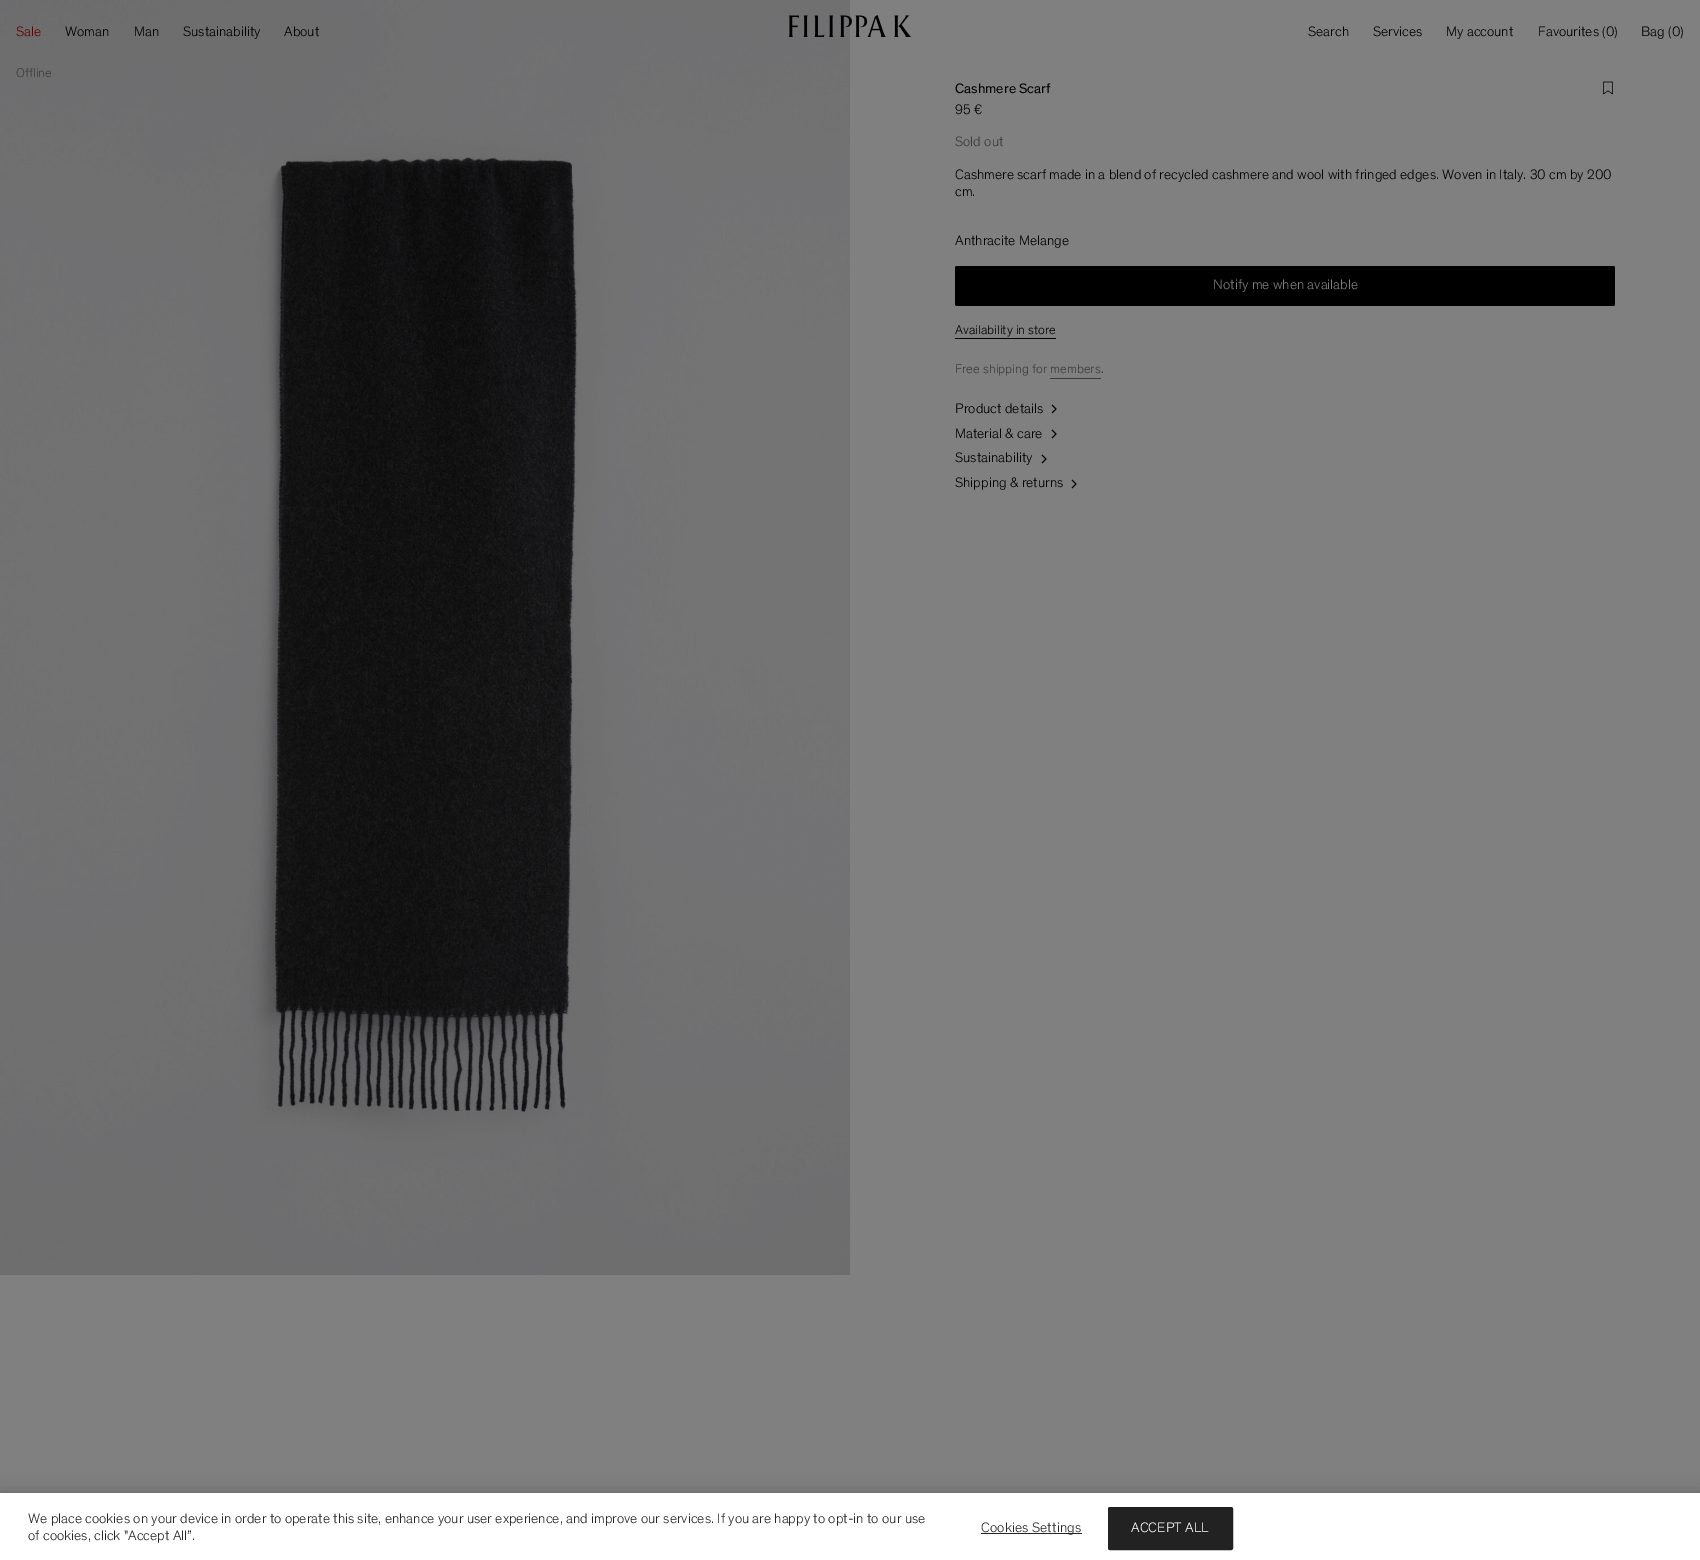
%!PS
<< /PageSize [1700 1560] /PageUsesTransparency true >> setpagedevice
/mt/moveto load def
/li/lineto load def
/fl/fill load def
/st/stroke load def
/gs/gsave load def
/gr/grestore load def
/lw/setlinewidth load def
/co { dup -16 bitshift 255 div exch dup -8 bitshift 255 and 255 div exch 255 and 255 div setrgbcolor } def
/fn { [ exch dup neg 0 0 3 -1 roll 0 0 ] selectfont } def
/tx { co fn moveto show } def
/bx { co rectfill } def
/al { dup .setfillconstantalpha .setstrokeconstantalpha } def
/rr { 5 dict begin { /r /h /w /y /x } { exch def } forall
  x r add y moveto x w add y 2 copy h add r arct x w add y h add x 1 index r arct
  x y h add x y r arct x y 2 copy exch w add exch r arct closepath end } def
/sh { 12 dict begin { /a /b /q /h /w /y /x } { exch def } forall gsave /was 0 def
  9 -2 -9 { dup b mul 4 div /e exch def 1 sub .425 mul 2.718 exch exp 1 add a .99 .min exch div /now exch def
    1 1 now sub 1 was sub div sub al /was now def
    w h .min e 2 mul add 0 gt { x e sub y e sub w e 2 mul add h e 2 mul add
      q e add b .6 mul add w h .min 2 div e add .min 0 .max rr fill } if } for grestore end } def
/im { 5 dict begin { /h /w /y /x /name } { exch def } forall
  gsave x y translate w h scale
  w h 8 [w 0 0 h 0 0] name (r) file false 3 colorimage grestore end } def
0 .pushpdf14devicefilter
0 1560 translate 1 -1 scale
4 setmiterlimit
0 0 1700 1560 16#808080 bx
(media/2.raw) 0 0 850 1275 im
(media/1.raw) 789 15 122 22 im
(media/3.raw) 1603 81 10 14 im
16#000000 co
955 266 660 40 2 rr fl
955 338 101 1 16#000000 bx
1050 378 51 1 16#3B3B3B bx
16#000000 co
.8 lw
2 setlinejoin
1052 413 mt 1056 409 li 1052 405 li 1052 438 mt 1056 434 li 1052 430 li 1042 463 mt 1046 459 li 1042 455 li st
1072 488 mt 1076 484 li 1072 480 li st
0 1493 1700 67 0 9 .2 sh
0 1493 1700 67 16#FFFFFF bx
981 1533 101 1 16#262626 bx
16#222222 co
1108.5 1507.5 124 42 1.5 rr gs fl gr
1 lw
0 setlinejoin
st
(Sale) 16 36 /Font-Light 14 16#660000 tx
(Woman) 65 36 /Font-Light 14 16#000000 tx
(Man) 134 36 /Font-Light 14 16#000000 tx
(Sustainability) 183 36 /Font-Light 14 16#000000 tx
(About) 284 36 /Font-Light 14 16#000000 tx
(Search) 1308 36 /Font-Light 14 16#000000 tx
(Services) 1373 36 /Font-Light 14 16#000000 tx
(My account) 1446 36 /Font-Light 14 16#000000 tx
(Favourites) 1538 36 /Font-Light 14 16#000000 tx
(\(0\)) 1602 36 /Font-Light 14 16#000000 tx
(Bag) 1641 36 /Font-Light 14 16#000000 tx
(\(0\)) 1668 36 /Font-Light 14 16#000000 tx
(Offline) 16 77 /Font-Light 13 16#3B3B3B tx
(Cashmere Scarf) 955 93 /Font-Regular 14 16#000000 tx
(95 €) 955 114 /Font-Light 14 16#000000 tx
(Sold out) 955 146 /Font-Light 14 16#3B3B3B tx
(Cashmere scarf made in a blend of recycled cashmere and wool with fringed edges. Woven in Italy. 30 cm by 200) 955 179 /Font-Light 14 16#000000 tx
(cm.) 955 196 /Font-Light 14 16#000000 tx
(Anthracite Melange) 955 245 /Font-Light 14 16#000000 tx
(Notify me when available) 1213 289 /Font-Light 14 16#808080 tx
(Availability in store) 955 334 /Font-Light 13 16#000000 tx
(Free shipping for members.) 955 373 /Font-Light 13 16#3B3B3B tx
(Product details) 955 413 /Font-Light 14 16#000000 tx
(Material & care) 955 438 /Font-Light 14 16#000000 tx
(Sustainability) 955 462 /Font-Light 14 16#000000 tx
(Shipping & returns) 955 487 /Font-Light 14 16#000000 tx
(We place cookies on your device in order to operate this site, enhance your user experience, and improve our services. If you are happy to opt-in to our use) 28 1523 /Font-Light 14 16#262626 tx
(of cookies, click "Accept All”.) 28 1540 /Font-Light 14 16#262626 tx
981 1532 mt .1 0 (Cookies Settings) ashow
16#FFFFFF co
1131 1532 mt .1 0 (ACCEPT ALL) ashow
.poppdf14devicefilter showpage
